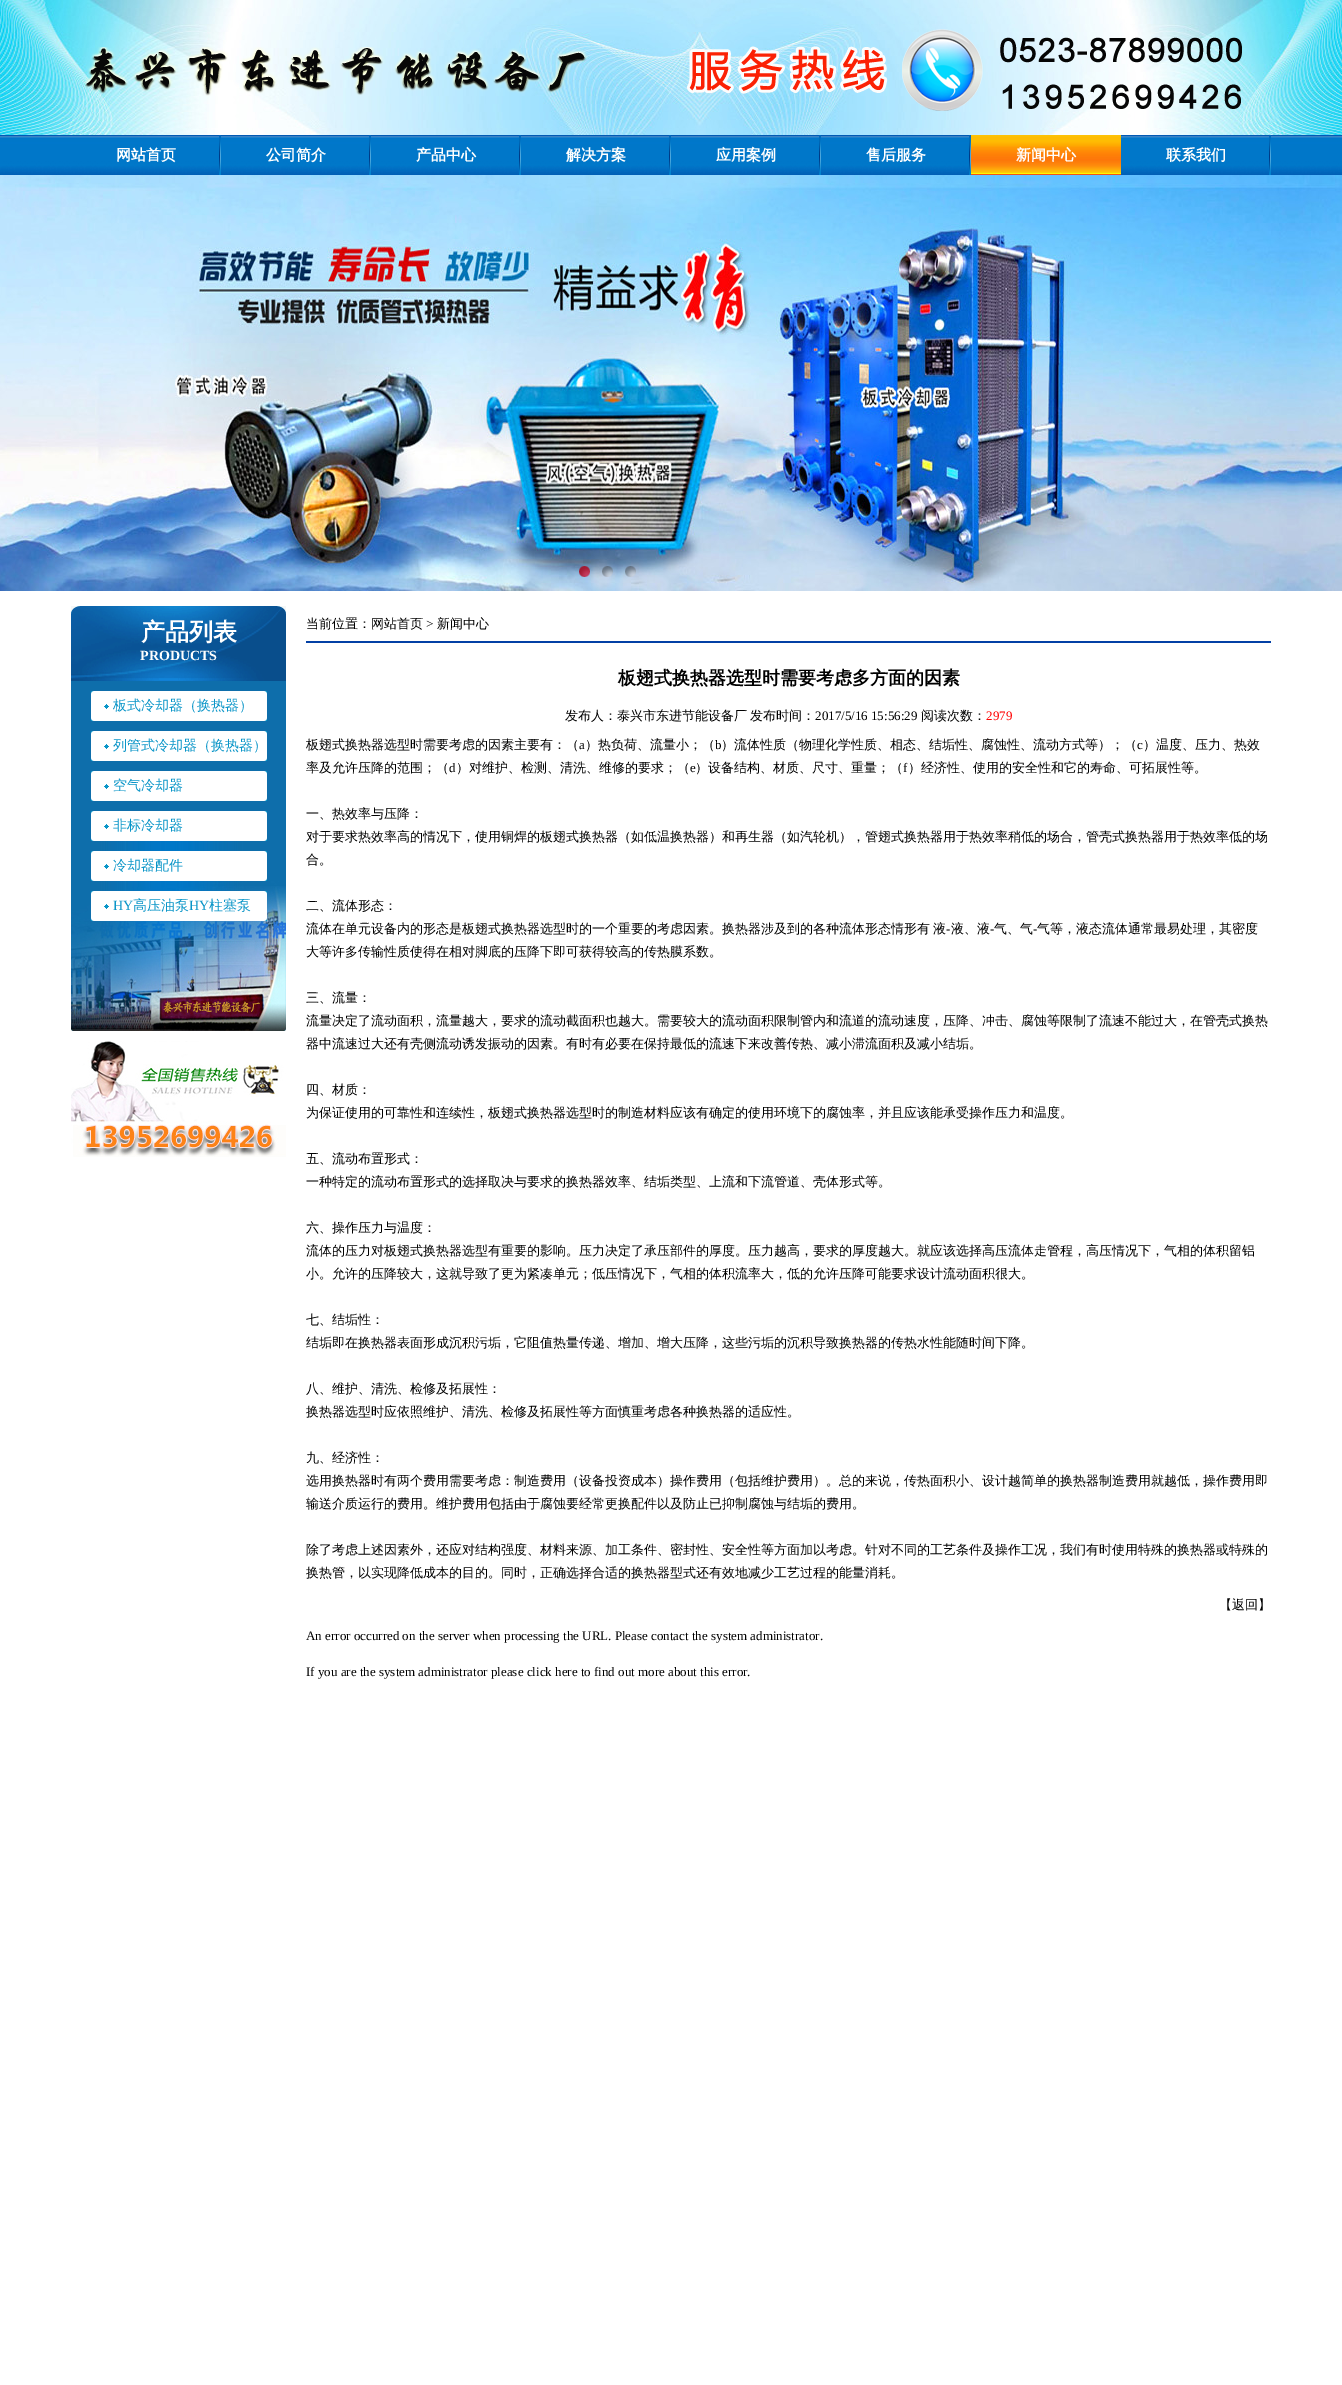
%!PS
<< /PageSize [1342 2385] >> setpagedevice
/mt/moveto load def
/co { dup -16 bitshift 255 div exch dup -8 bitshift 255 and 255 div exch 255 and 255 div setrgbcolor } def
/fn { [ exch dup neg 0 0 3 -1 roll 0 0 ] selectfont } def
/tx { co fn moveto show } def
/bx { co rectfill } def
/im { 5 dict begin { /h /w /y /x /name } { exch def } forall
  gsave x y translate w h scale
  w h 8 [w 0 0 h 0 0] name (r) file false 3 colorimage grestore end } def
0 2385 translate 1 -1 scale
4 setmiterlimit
0 0 1342 2385 16#FFFFFF bx
(media/1.raw) 0 0 1342 135 im
(media/2.raw) 0 135 1342 40 im
(media/3.raw) 84 29 1158 82 im
(media/4.raw) 219 135 2 40 im
(media/4.raw) 369 135 2 40 im
(media/4.raw) 519 135 2 40 im
(media/4.raw) 669 135 2 40 im
(media/4.raw) 819 135 2 40 im
(media/4.raw) 969 135 2 40 im
(media/5.raw) 971 135 150 40 im
(media/4.raw) 1269 135 2 40 im
(media/6.raw) 0 175 1342 416 im
(media/7.raw) 579 566 11 11 im
(media/8.raw) 602 566 11 11 im
(media/9.raw) 625 566 11 11 im
(media/10.raw) 71 606 215 75 im
71 681 215 150 16#0E6EAB bx
(media/11.raw) 71 831 215 200 im
(media/12.raw) 91 691 176 30 im
(media/12.raw) 91 731 176 30 im
(media/12.raw) 91 771 176 30 im
(media/12.raw) 91 811 176 30 im
(media/12.raw) 91 851 176 30 im
(media/12.raw) 91 891 176 30 im
(media/13.raw) 71 1041 215 116 im
306 641 965 2 16#0340A5 bx
(网站首页) 116 160 /WenQuanYiZenHei-Bold 15 16#FFFFFF tx
(公司简介) 266 160 /WenQuanYiZenHei-Bold 15 16#FFFFFF tx
(产品中心) 416 160 /WenQuanYiZenHei-Bold 15 16#FFFFFF tx
(解决方案) 566 160 /WenQuanYiZenHei-Bold 15 16#FFFFFF tx
(应用案例) 716 160 /WenQuanYiZenHei-Bold 15 16#FFFFFF tx
(售后服务) 866 160 /WenQuanYiZenHei-Bold 15 16#FFFFFF tx
(新闻中心) 1016 160 /WenQuanYiZenHei-Bold 15 16#FFFFFF tx
(联系我们) 1166 160 /WenQuanYiZenHei-Bold 15 16#FFFFFF tx
(产品列表) 141 640 /WenQuanYiZenHei-Bold 24 16#FFFFFF tx
(PRODUCTS) 140 660 /LiberationSerif-Bold 14 16#FFFFFF tx
(板式冷却器（换热器）) 113 710 /WenQuanYiZenHei-Medium 14 16#0995C8 tx
(列管式冷却器（换热器）) 113 750 /WenQuanYiZenHei-Medium 14 16#0995C8 tx
(空气冷却器) 113 790 /WenQuanYiZenHei-Medium 14 16#0995C8 tx
(非标冷却器) 113 830 /WenQuanYiZenHei-Medium 14 16#0995C8 tx
(冷却器配件) 113 870 /WenQuanYiZenHei-Medium 14 16#0995C8 tx
(HY) 113 910 /LiberationSerif-Regular 14 16#0995C8 tx
(高压油泵) 133 910 /WenQuanYiZenHei-Medium 14 16#0995C8 tx
(HY) 189 910 /LiberationSerif-Regular 14 16#0995C8 tx
(柱塞泵) 209 910 /WenQuanYiZenHei-Medium 14 16#0995C8 tx
(当前位置：网站首页) 306 628 /WenQuanYiZenHei-Medium 13 16#000000 tx
(>) 426 628 /LiberationSerif-Regular 13 16#000000 tx
(新闻中心) 437 628 /WenQuanYiZenHei-Medium 13 16#000000 tx
(板翅式换热器选型时需要考虑多方面的因素) 618 684 /WenQuanYiZenHei-Bold 18 16#000000 tx
(发布人：泰兴市东进节能设备厂) 565 720 /WenQuanYiZenHei-Medium 13 16#000000 tx
(发布时间：) 750 720 /WenQuanYiZenHei-Medium 13 16#000000 tx
(2017/5/16 15:56:29) 815 720 /LiberationSerif-Regular 13 16#000000 tx
(阅读次数：) 921 720 /WenQuanYiZenHei-Medium 13 16#000000 tx
(2979) 986 720 /LiberationSerif-Regular 13 16#FF0000 tx
(板翅式换热器选型时需要考虑的因素主要有：（) 306 749 /WenQuanYiZenHei-Medium 13 16#000000 tx
(a) 579 749 /LiberationSerif-Regular 13 16#000000 tx
(）热负荷、流量小；（) 585 749 /WenQuanYiZenHei-Medium 13 16#000000 tx
(b) 715 749 /LiberationSerif-Regular 13 16#000000 tx
(）流体性质（物理化学性质、相态、结垢性、腐蚀性、流动方式等）；（) 721 749 /WenQuanYiZenHei-Medium 13 16#000000 tx
(c) 1137 749 /LiberationSerif-Regular 13 16#000000 tx
(）温度、压力、热效) 1143 749 /WenQuanYiZenHei-Medium 13 16#000000 tx
(率及允许压降的范围；（) 306 772 /WenQuanYiZenHei-Medium 13 16#000000 tx
(d) 449 772 /LiberationSerif-Regular 13 16#000000 tx
(）对维护、检测、清洗、维修的要求；（) 456 772 /WenQuanYiZenHei-Medium 13 16#000000 tx
(e) 690 772 /LiberationSerif-Regular 13 16#000000 tx
(）设备结构、材质、尺寸、重量；（) 695 772 /WenQuanYiZenHei-Medium 13 16#000000 tx
(f) 903 772 /LiberationSerif-Regular 13 16#000000 tx
(）经济性、使用的安全性和它的寿命、可拓展性等。) 908 772 /WenQuanYiZenHei-Medium 13 16#000000 tx
(一、热效率与压降：) 306 818 /WenQuanYiZenHei-Medium 13 16#000000 tx
(对于要求热效率高的情况下，使用铜焊的板翅式换热器（如低温换热器）和再生器（如汽轮机），管翅式换热器用于热效率稍低的场合，管壳式换热器用于热效率低的场) 306 841 /WenQuanYiZenHei-Medium 13 16#000000 tx
(合。) 306 864 /WenQuanYiZenHei-Medium 13 16#000000 tx
(二、流体形态：) 306 910 /WenQuanYiZenHei-Medium 13 16#000000 tx
306 933 mt -1 0 32 (流体在单元设备内的形态是板翅式换热器选型时的一个重要的考虑因素。换热器涉及到的各种流体形态情形有 液) widthshow
(-) 946 933 /LiberationSerif-Regular 13 16#000000 tx
(液、液) 951 933 /WenQuanYiZenHei-Medium 13 16#000000 tx
(-) 990 933 /LiberationSerif-Regular 13 16#000000 tx
(气、气) 994 933 /WenQuanYiZenHei-Medium 13 16#000000 tx
(-) 1033 933 /LiberationSerif-Regular 13 16#000000 tx
(气等，液态流体通常最易处理，其密度) 1037 933 /WenQuanYiZenHei-Medium 13 16#000000 tx
(大等许多传输性质使得在相对脚底的压降下即可获得较高的传热膜系数。) 306 956 /WenQuanYiZenHei-Medium 13 16#000000 tx
(三、流量：) 306 1002 /WenQuanYiZenHei-Medium 13 16#000000 tx
(流量决定了流动面积，流量越大，要求的流动截面积也越大。需要较大的流动面积限制管内和流道的流动速度，压降、冲击、腐蚀等限制了流速不能过大，在管壳式换热) 306 1025 /WenQuanYiZenHei-Medium 13 16#000000 tx
(器中流速过大还有壳侧流动诱发振动的因素。有时有必要在保持最低的流速下来改善传热、减小滞流面积及减小结垢。) 306 1048 /WenQuanYiZenHei-Medium 13 16#000000 tx
(四、材质：) 306 1094 /WenQuanYiZenHei-Medium 13 16#000000 tx
(为保证使用的可靠性和连续性，板翅式换热器选型时的制造材料应该有确定的使用环境下的腐蚀率，并且应该能承受操作压力和温度。) 306 1117 /WenQuanYiZenHei-Medium 13 16#000000 tx
(五、流动布置形式：) 306 1163 /WenQuanYiZenHei-Medium 13 16#000000 tx
(一种特定的流动布置形式的选择取决与要求的换热器效率、结垢类型、上流和下流管道、壳体形式等。) 306 1186 /WenQuanYiZenHei-Medium 13 16#000000 tx
(六、操作压力与温度：) 306 1232 /WenQuanYiZenHei-Medium 13 16#000000 tx
(流体的压力对板翅式换热器选型有重要的影响。压力决定了承压部件的厚度。压力越高，要求的厚度越大。就应该选择高压流体走管程，高压情况下，气相的体积留铝) 306 1255 /WenQuanYiZenHei-Medium 13 16#000000 tx
(小。允许的压降较大，这就导致了更为紧凑单元；低压情况下，气相的体积流率大，低的允许压降可能要求设计流动面积很大。) 306 1278 /WenQuanYiZenHei-Medium 13 16#000000 tx
(七、结垢性：) 306 1324 /WenQuanYiZenHei-Medium 13 16#000000 tx
(结垢即在换热器表面形成沉积污垢，它阻值热量传递、增加、增大压降，这些污垢的沉积导致换热器的传热水性能随时间下降。) 306 1347 /WenQuanYiZenHei-Medium 13 16#000000 tx
(八、维护、清洗、检修及拓展性：) 306 1393 /WenQuanYiZenHei-Medium 13 16#000000 tx
(换热器选型时应依照维护、清洗、检修及拓展性等方面慎重考虑各种换热器的适应性。) 306 1416 /WenQuanYiZenHei-Medium 13 16#000000 tx
(九、经济性：) 306 1462 /WenQuanYiZenHei-Medium 13 16#000000 tx
(选用换热器时有两个费用需要考虑：制造费用（设备投资成本）操作费用（包括维护费用）。总的来说，传热面积小、设计越简单的换热器制造费用就越低，操作费用即) 306 1485 /WenQuanYiZenHei-Medium 13 16#000000 tx
(输送介质运行的费用。维护费用包括由于腐蚀要经常更换配件以及防止已抑制腐蚀与结垢的费用。) 306 1508 /WenQuanYiZenHei-Medium 13 16#000000 tx
(除了考虑上述因素外，还应对结构强度、材料来源、加工条件、密封性、安全性等方面加以考虑。针对不同的工艺条件及操作工况，我们有时使用特殊的换热器或特殊的) 306 1554 /WenQuanYiZenHei-Medium 13 16#000000 tx
(换热管，以实现降低成本的目的。同时，正确选择合适的换热器型式还有效地减少工艺过程的能量消耗。) 306 1577 /WenQuanYiZenHei-Medium 13 16#000000 tx
(【返回】) 1219 1609 /WenQuanYiZenHei-Medium 13 16#000000 tx
(An error occurred on the server when processing the URL. Please contact the system administrator.) 306 1640 /LiberationSerif-Regular 13 16#000000 tx
(If you are the system administrator please click here to find out more about this error.) 306 1676 /LiberationSerif-Regular 13 16#000000 tx
showpage
